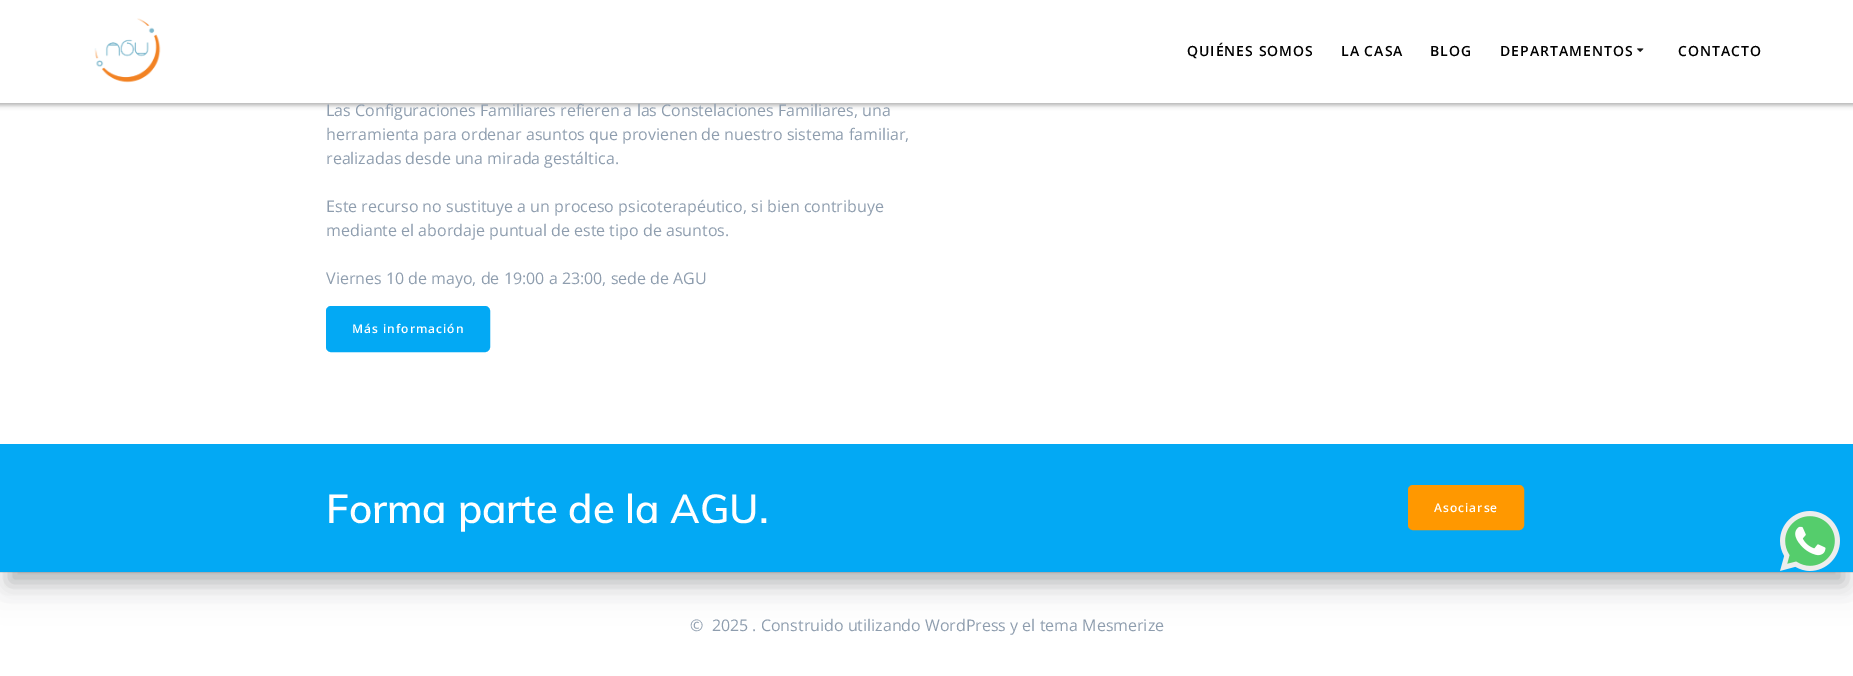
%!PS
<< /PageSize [1853 676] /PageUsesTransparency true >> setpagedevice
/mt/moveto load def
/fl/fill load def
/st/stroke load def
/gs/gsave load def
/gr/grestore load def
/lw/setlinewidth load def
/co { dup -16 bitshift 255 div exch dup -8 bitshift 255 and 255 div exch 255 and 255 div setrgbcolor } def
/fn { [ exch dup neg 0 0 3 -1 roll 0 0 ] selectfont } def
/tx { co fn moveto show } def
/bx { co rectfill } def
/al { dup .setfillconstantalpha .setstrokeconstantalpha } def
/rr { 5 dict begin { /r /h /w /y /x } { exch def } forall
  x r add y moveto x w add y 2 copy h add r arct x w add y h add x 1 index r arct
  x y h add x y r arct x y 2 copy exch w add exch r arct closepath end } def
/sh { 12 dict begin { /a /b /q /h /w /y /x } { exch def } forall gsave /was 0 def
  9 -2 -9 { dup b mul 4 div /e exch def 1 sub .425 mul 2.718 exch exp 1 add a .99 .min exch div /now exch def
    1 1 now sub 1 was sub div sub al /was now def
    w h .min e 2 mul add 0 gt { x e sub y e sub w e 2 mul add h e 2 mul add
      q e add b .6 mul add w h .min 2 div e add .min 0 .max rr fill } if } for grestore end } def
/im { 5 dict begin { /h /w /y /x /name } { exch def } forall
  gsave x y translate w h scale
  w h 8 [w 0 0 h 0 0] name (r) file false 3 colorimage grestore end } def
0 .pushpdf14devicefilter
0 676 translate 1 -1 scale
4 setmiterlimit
0 0 1853 676 16#FFFFFF bx
0 572 1853 1 16#E8E8E8 bx
16#000000 co
0 -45 1853 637 0 15 .08 sh
16#313439 co
10 -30 1833 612 0 10 .3 sh
0 103 1853 341 16#FFFFFF bx
16#000000 co
-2 -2 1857 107 0 2.5 .33 sh
0 0 1853 103 16#FFFFFF bx
(media/1.raw) 94 18 67 65 im
(media/2.raw) 1637 48 7 4 im
16#03A9F4 co
327 307 162 44 4 rr gs fl gr
2 lw
st
0 444 1853 128 16#03A9F4 bx
16#FF9800 co
1409 486 114 43 4 rr gs fl gr
st
(media/3.raw) 1780 511 60 60 im
/OpenSans-SemiBold 14 fn
16#000000 co
1187 56 mt 1 0 (QUIÉNES SOMOS) ashow
1341 56 mt 1 0 (LA CASA) ashow
1430 56 mt 1 0 (BLOG) ashow
1500 56 mt 1 0 (DEPARTAMENTOS) ashow
1678 56 mt 1 0 (CONTACTO) ashow
(Las Configuraciones Familiares refieren a las Constelaciones Familiares, una) 326 116 /OpenSans-Regular 16 16#8E9DAE tx
(herramienta para ordenar asuntos que provienen de nuestro sistema familiar,) 326 140 /OpenSans-Regular 16 16#8E9DAE tx
(realizadas desde una mirada gestáltica.) 326 164 /OpenSans-Regular 16 16#8E9DAE tx
(Este recurso no sustituye a un proceso psicoterapéutico, si bien contribuye) 326 212 /OpenSans-Regular 16 16#8E9DAE tx
(mediante el abordaje puntual de este tipo de asuntos.) 326 236 /OpenSans-Regular 16 16#8E9DAE tx
(Viernes 10 de mayo, de 19:00 a 23:00, sede de AGU) 326 284 /OpenSans-Regular 16 16#8E9DAE tx
/OpenSans-SemiBold 12 fn
16#FFFFFF co
352 333 mt 1 0 (Más información) ashow
(Forma parte de la AGU.) 326 523 /Muli-SemiBold 40 16#FFFFFF tx
/OpenSans-SemiBold 12 fn
1434 512 mt 1 0 (Asociarse) ashow
(©  2025 . Construido utilizando WordPress y el tema Mesmerize) 690 631 /OpenSans-Regular 16 16#8E9DAE tx
.poppdf14devicefilter showpage
